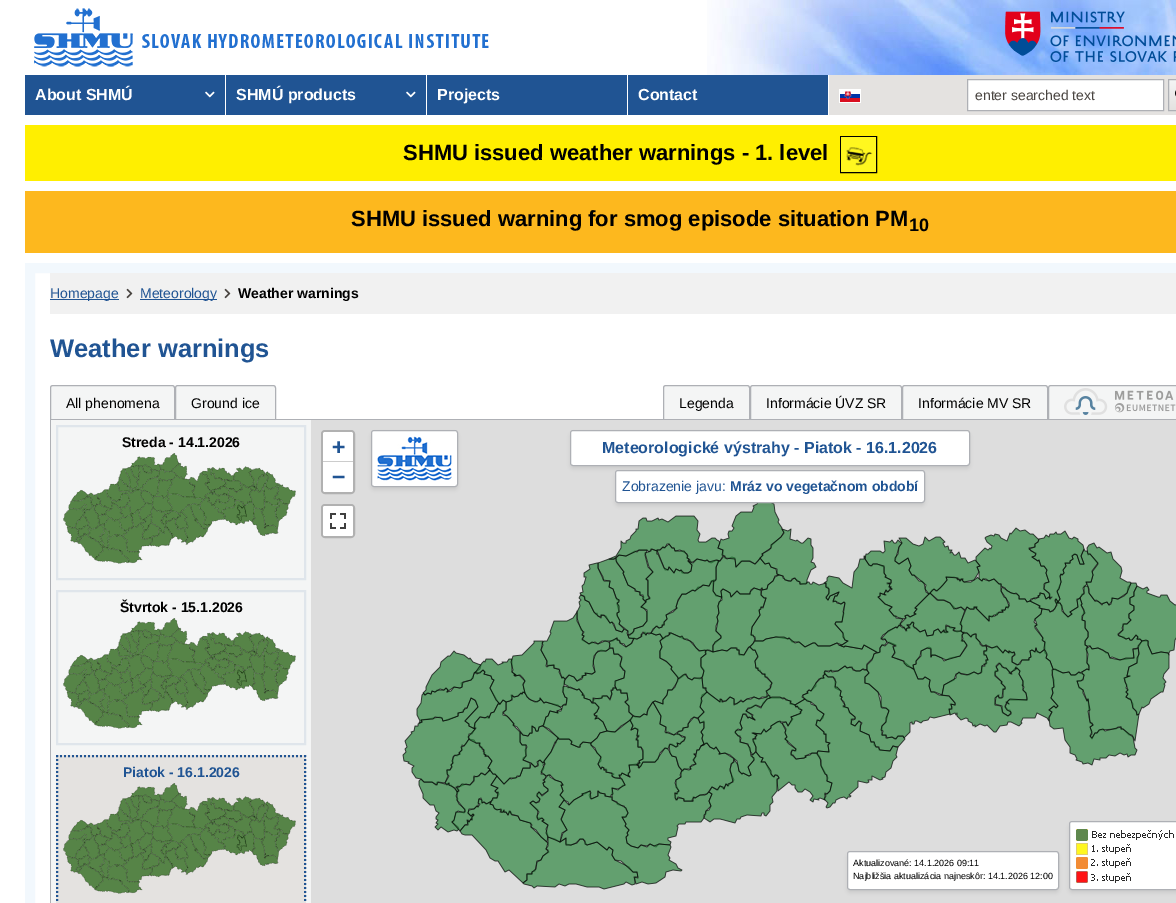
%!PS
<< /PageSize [1176 903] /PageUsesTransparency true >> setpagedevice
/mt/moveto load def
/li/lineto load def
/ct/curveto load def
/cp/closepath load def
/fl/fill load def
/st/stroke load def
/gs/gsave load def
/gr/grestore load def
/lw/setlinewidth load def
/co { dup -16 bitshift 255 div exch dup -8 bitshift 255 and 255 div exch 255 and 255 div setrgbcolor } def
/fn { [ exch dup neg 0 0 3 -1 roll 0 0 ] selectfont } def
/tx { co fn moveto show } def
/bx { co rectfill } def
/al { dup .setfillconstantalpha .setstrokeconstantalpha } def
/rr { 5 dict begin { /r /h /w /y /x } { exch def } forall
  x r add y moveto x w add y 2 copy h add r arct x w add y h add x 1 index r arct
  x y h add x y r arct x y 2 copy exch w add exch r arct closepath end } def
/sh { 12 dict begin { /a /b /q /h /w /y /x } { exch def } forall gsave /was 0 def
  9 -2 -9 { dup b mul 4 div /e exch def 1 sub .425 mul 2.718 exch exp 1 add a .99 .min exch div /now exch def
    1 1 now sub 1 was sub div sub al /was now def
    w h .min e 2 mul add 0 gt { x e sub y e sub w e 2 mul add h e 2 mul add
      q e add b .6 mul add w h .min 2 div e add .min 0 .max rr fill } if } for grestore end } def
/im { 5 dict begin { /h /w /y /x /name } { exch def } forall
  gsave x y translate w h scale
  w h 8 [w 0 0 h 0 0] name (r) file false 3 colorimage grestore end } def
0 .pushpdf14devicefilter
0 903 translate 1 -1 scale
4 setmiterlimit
0 0 1176 903 16#FFFFFF bx
(media/1.raw) 34 8 455 59 im
(media/2.raw) 707 0 469 75 im
(media/3.raw) 1005 11 171 51 im
829 75 347 40 16#E4E2E0 bx
25 75 200 40 16#205493 bx
(media/4.raw) 205 91 10 7 im
226 75 200 40 16#205493 bx
(media/4.raw) 406 91 10 7 im
427 75 200 40 16#205493 bx
628 75 200 40 16#205493 bx
(media/5.raw) 839 89 22 14 im
16#FFFFFF co
967.5 79.5 mt 1163.5 79.5 li 1163.5 110.5 li 967.5 110.5 li cp gs fl gr
16#AEB0B5 co
st
gs 1169 80 mt 1176 80 li 1176 110 li 1169 110 li cp clip newpath
<< /ShadingType 2 /ColorSpace /DeviceRGB /Coords [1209 80 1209 110] /Extend [true true] /Function << /FunctionType 2 /Domain [0 1] /C0 [.957 .961 .961] /C1 [.894 .886 .878] /N 1 >> >> shfill gr
1168.5 79.5 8 31 rectstroke
(media/6.raw) 1175 90 1 7 im
25 125 1151 56 16#FFEF00 bx
16#000000 co
840.5 136.5 36 36 rectstroke
(media/7.raw) 841 137 35 35 im
25 191 1151 62 16#FDB81E bx
16#F2F8FD co
10 lw
30 268 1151 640 rectstroke
50 273 1126 41 16#F1F1F1 bx
50 299 69 1 16#205493 bx
(media/8.raw) 126 288 7 11 im
140 299 77 1 16#205493 bx
(media/8.raw) 224 288 7 11 im
276 419 387 1 16#AEB0B5 bx
gs
53 385 mt 172 385 li 173.5 385 175 386.5 175 388 ct 175 420 li 50 420 li 50 388 li 50 386.5 51.5 385 53 385 ct cp clip newpath
50 386 125 33 16#F4F5F5 bx
gr
1 lw
53 385.5 mt 172 385.5 li 173.5 385.5 174.5 386.5 174.5 388 ct 174.5 419.5 li 50.5 419.5 li 50.5 388 li 50.5 386.5 51.5 385.5 53 385.5 ct cp st
gs
178 385 mt 273 385 li 274.5 385 276 386.5 276 388 ct 276 420 li 175 420 li 175 388 li 175 386.5 176.5 385 178 385 ct cp clip newpath
175 386 101 33 16#F4F5F5 bx
gr
178 385.5 mt 273 385.5 li 274.5 385.5 275.5 386.5 275.5 388 ct 275.5 419.5 li 175.5 419.5 li 175.5 388 li 175.5 386.5 176.5 385.5 178 385.5 ct cp st
gs
666 385 mt 747 385 li 748.5 385 750 386.5 750 388 ct 750 420 li 663 420 li 663 388 li 663 386.5 664.5 385 666 385 ct cp clip newpath
663 386 87 33 16#F4F5F5 bx
gr
666 385.5 mt 747 385.5 li 748.5 385.5 749.5 386.5 749.5 388 ct 749.5 419.5 li 663.5 419.5 li 663.5 388 li 663.5 386.5 664.5 385.5 666 385.5 ct cp st
gs
753 385 mt 899 385 li 900.5 385 902 386.5 902 388 ct 902 420 li 750 420 li 750 388 li 750 386.5 751.5 385 753 385 ct cp clip newpath
750 386 152 33 16#F4F5F5 bx
gr
753 385.5 mt 899 385.5 li 900.5 385.5 901.5 386.5 901.5 388 ct 901.5 419.5 li 750.5 419.5 li 750.5 388 li 750.5 386.5 751.5 385.5 753 385.5 ct cp st
gs
905 385 mt 1045 385 li 1046.5 385 1048 386.5 1048 388 ct 1048 420 li 902 420 li 902 388 li 902 386.5 903.5 385 905 385 ct cp clip newpath
902 386 146 33 16#F4F5F5 bx
gr
905 385.5 mt 1045 385.5 li 1046.5 385.5 1047.5 386.5 1047.5 388 ct 1047.5 419.5 li 902.5 419.5 li 902.5 388 li 902.5 386.5 903.5 385.5 905 385.5 ct cp st
1048 386 128 33 16#F4F5F5 bx
16#AEB0B5 co
1051 385.5 mt 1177 385.5 li 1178.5 385.5 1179.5 386.5 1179.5 388 ct 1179.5 419.5 li 1048.5 419.5 li 1048.5 388 li 1048.5 386.5 1049.5 385.5 1051 385.5 ct cp st
(media/9.raw) 1064 388 112 27 im
51 420 260 483 16#F4F5F5 bx
50 420 1 483 16#AEB0B5 bx
16#DFE5EB co
2 lw
57 426 248 153 rectstroke
(media/10.raw) 63 453 233 111 im
57 591 248 153 rectstroke
(media/11.raw) 63 618 233 111 im
56 755 250 148 16#E4E2E0 bx
16#205493 co
[2 2] 0 setdash
56 756 mt 306 756 li st
305 755 mt 305 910 li st
57 755 mt 57 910 li st
(media/12.raw) 63 783 233 111 im
311 420 865 483 16#DDDDDD bx
16#B1B1B1 co
[] 0 setdash
322 431 32 62 3 rr st
16#FFFFFF co
325 432 mt 351 432 li 352 432 353 433 353 434 ct 353 462 li 323 462 li 323 434 li 323 433 324 432 325 432 ct cp fl
323 461 30 1 16#CCCCCC bx
16#FFFFFF co
323 462 mt 353 462 li 353 490 li 353 491 352 492 351 492 ct 325 492 li 324 492 323 491 323 490 ct cp fl
16#B1B1B1 co
322 505 32 32 3 rr st
16#FFFFFF co
323 506 30 30 2 rr fl
(media/13.raw) 330 513 16 16 im
16#494440 co
371 433 87 57 3 1.5 .1 sh
16#FFFFFF co
371.5 430.5 86 56 2.5 rr gs fl gr
16#AEB0B5 co
1 lw
st
(media/14.raw) 377 436 75 45 im
16#494440 co
570 433 400 36 3 1.5 .1 sh
16#FFFFFF co
570.5 430.5 399 35 2.5 rr gs fl gr
16#AEB0B5 co
st
(media/15.raw) 402 503 774 387 im
16#494440 co
615 473 310 33 3 1.5 .1 sh
16#FFFFFF co
615.5 470.5 309 32 2.5 rr gs fl gr
16#AEB0B5 co
st
16#494440 co
847 854 212 39 3 1.5 .1 sh
16#FFFFFF co
847.5 851.5 211 38 2.5 rr gs fl gr
16#AEB0B5 co
st
16#494440 co
1069 824 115 69 3 1.5 .1 sh
16#FFFFFF co
1069.5 821.5 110 68 2.5 rr gs fl gr
16#AEB0B5 co
st
(media/16.raw) 1076 829 98 54 im
(About SHMÚ) 35 100 /LiberationSans-Bold 16 16#FFFFFF tx
(SHMÚ products) 236 100 /LiberationSans-Bold 16 16#FFFFFF tx
(Projects) 437 100 /LiberationSans-Bold 16 16#FFFFFF tx
(Contact) 638 100 /LiberationSans-Bold 16 16#FFFFFF tx
(enter searched text) 975 100 /LiberationSans-Regular 14 16#494440 tx
(SHMU issued weather warnings - 1. level) 403 160 /LiberationSans-Bold 22 16#000000 tx
(SHMU issued warning for smog episode situation PM) 351 226 /LiberationSans-Bold 22 16#000000 tx
(10) 909 231 /LiberationSans-Bold 18 16#000000 tx
(Homepage) 50 298 /LiberationSans-Regular 14 16#205493 tx
(Meteorology) 140 298 /LiberationSans-Regular 14 16#205493 tx
(Weather warnings) 238 298 /LiberationSans-Bold 14 16#000000 tx
(Weather warnings) 50 357 /LiberationSans-Bold 25.5 16#205493 tx
(All phenomena) 66 408 /LiberationSans-Regular 14 16#000000 tx
(Ground ice) 191 408 /LiberationSans-Regular 14 16#000000 tx
(Legenda) 679 408 /LiberationSans-Regular 14 16#000000 tx
(Informácie ÚVZ SR) 766 408 /LiberationSans-Regular 14 16#000000 tx
(Informácie MV SR) 918 408 /LiberationSans-Regular 14 16#000000 tx
(Streda - 14.1.2026) 122 447 /LiberationSans-Bold 14 16#000000 tx
(Štvrtok - 15.1.2026) 120 612 /LiberationSans-Bold 14 16#000000 tx
(Piatok - 16.1.2026) 123 777 /LiberationSans-Bold 14 16#205493 tx
(+) 332 454 /DejaVuSansMono-Bold 22 16#205493 tx
(−) 332 484 /DejaVuSansMono-Bold 22 16#205493 tx
(Meteorologické výstrahy - Piatok - 16.1.2026) 602 453 /LiberationSans-Bold 16 16#205493 tx
(Zobrazenie javu:) 622 491 /LiberationSans-Regular 14 16#205493 tx
(Mráz vo vegetačnom období) 730 491 /LiberationSans-Bold 14 16#205493 tx
(Aktualizované: 14.1.2026 09:11) 853 866 /LiberationSans-Regular 9 16#000000 tx
(Najbližšia aktualizácia najneskôr: 14.1.2026 12:00) 853 879 /LiberationSans-Regular 9 16#000000 tx
.poppdf14devicefilter showpage
